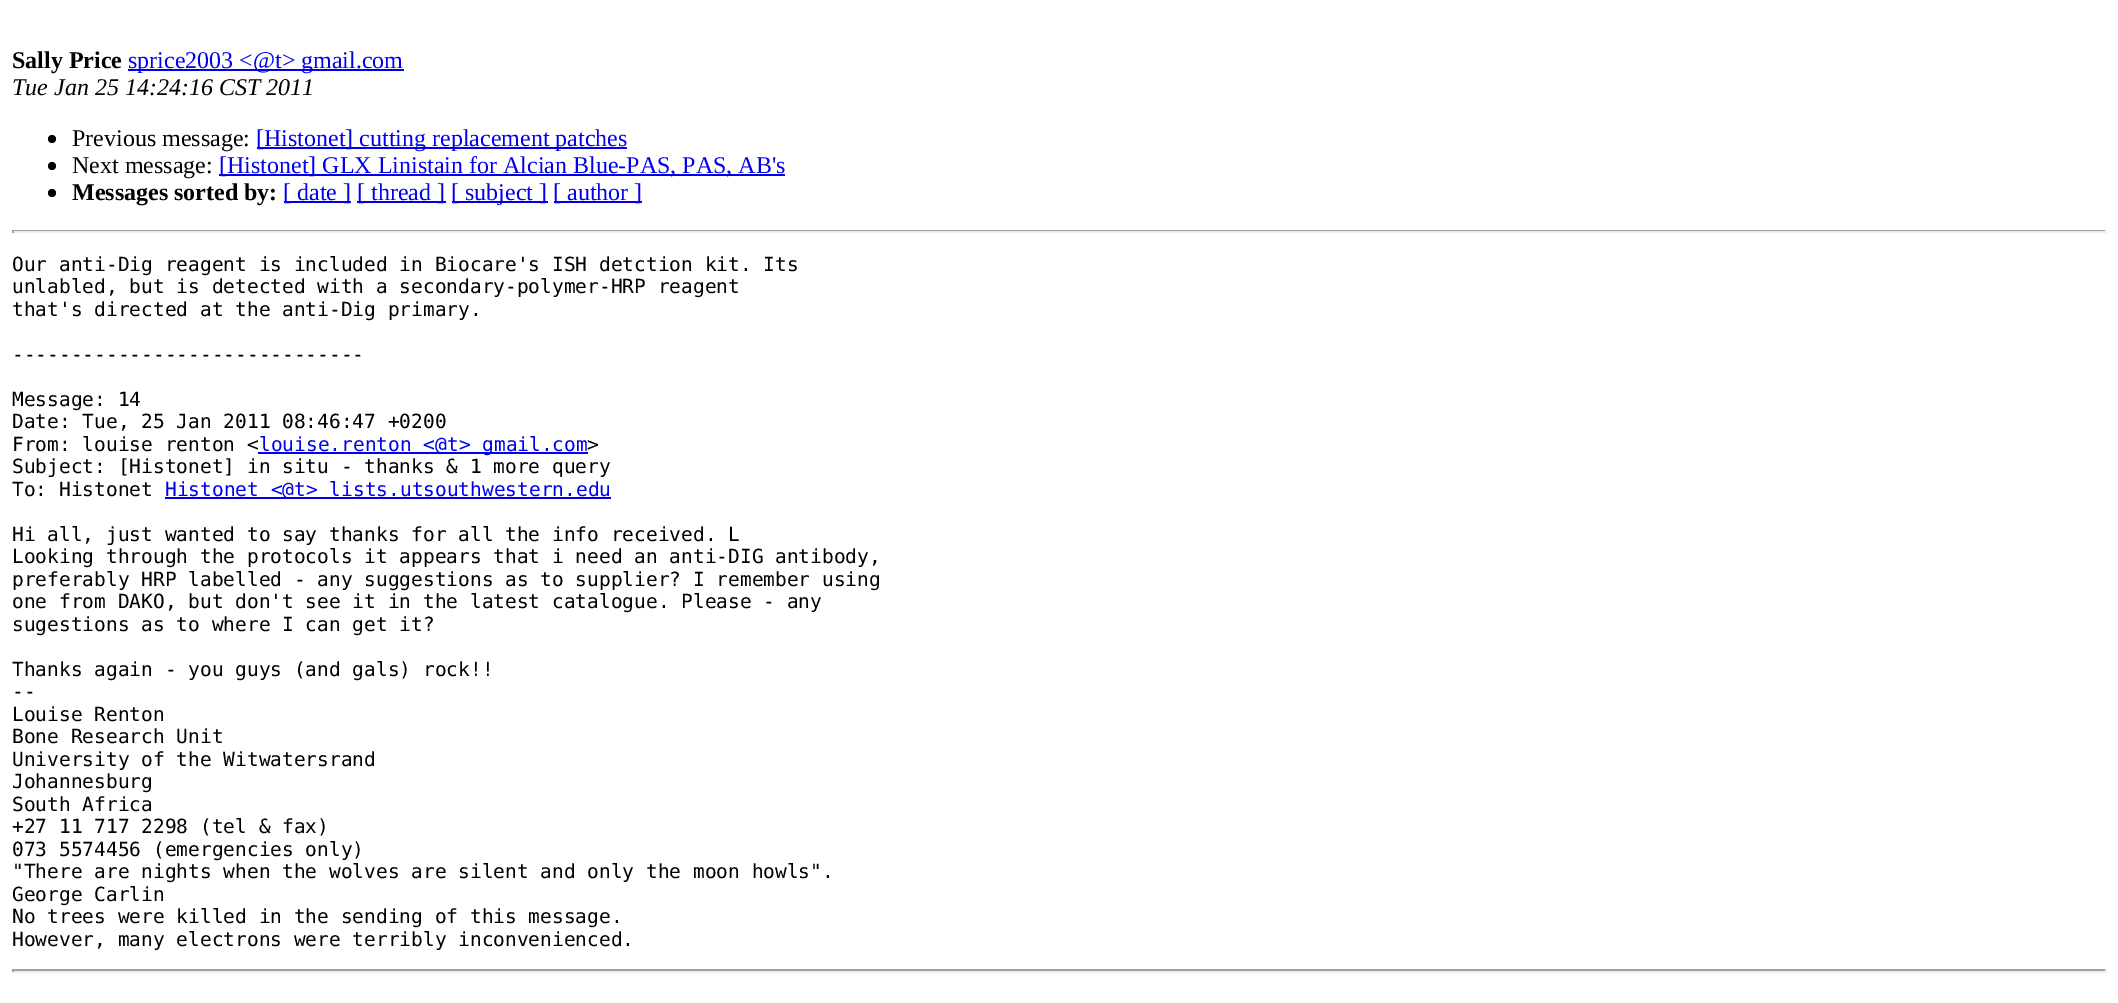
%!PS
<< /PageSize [2118 1003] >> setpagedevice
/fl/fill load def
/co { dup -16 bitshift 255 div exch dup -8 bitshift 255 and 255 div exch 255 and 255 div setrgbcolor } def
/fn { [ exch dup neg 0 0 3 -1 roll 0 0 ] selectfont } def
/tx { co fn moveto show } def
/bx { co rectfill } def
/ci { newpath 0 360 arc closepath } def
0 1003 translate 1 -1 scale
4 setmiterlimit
0 0 2118 1003 16#FFFFFF bx
128 69 276 2 16#0000EE bx
16#000000 co
52 139 4 ci fl
257 147 370 2 16#0000EE bx
16#000000 co
52 166 4 ci fl
219 174 566 2 16#0000EE bx
16#000000 co
52 193 4 ci fl
284 201 67 2 16#0000EE bx
357 201 89 2 16#0000EE bx
452 201 96 2 16#0000EE bx
554 201 88 2 16#0000EE bx
12 230 2094 1 16#9F9F9F bx
2105 230 2 3 16#EEEEEE bx
12 231 2094 2 16#EEEEEE bx
12 230 2 3 16#9F9F9F bx
258 452 330 2 16#0000EE bx
165 497 446 2 16#0000EE bx
12 969 2094 2 16#9F9F9F bx
2105 969 2 3 16#EEEEEE bx
12 971 2094 2 16#EEEEEE bx
12 969 2 3 16#9F9F9F bx
(Sally Price) 12 68 /LiberationSerif-Bold 24 16#000000 tx
(sprice2003 <@t> gmail.com) 128 68 /LiberationSerif-Regular 24 16#0000EE tx
(Tue Jan 25 14:24:16 CST 2011) 12 95 /LiberationSerif-Italic 24 16#000000 tx
(Previous message:) 72 146 /LiberationSerif-Regular 24 16#000000 tx
([Histonet] cutting replacement patches) 256 146 /LiberationSerif-Regular 24 16#0000EE tx
(Next message:) 72 173 /LiberationSerif-Regular 24 16#000000 tx
([Histonet] GLX Linistain for Alcian Blue-PAS, PAS, AB's) 219 173 /LiberationSerif-Regular 24 16#0000EE tx
(Messages sorted by:) 72 200 /LiberationSerif-Bold 24 16#000000 tx
([ date ]) 283 200 /LiberationSerif-Regular 24 16#0000EE tx
([ thread ]) 357 200 /LiberationSerif-Regular 24 16#0000EE tx
([ subject ]) 451 200 /LiberationSerif-Regular 24 16#0000EE tx
([ author ]) 553 200 /LiberationSerif-Regular 24 16#0000EE tx
(Our anti-Dig reagent is included in Biocare's ISH detction kit. Its) 12 271 /DejaVuSansMono-Regular 19.5 16#000000 tx
(unlabled, but is detected with a secondary-polymer-HRP reagent) 12 293 /DejaVuSansMono-Regular 19.5 16#000000 tx
(that's directed at the anti-Dig primary.) 12 316 /DejaVuSansMono-Regular 19.5 16#000000 tx
(------------------------------) 12 361 /DejaVuSansMono-Regular 19.5 16#000000 tx
(Message: 14) 12 406 /DejaVuSansMono-Regular 19.5 16#000000 tx
(Date: Tue, 25 Jan 2011 08:46:47 +0200) 12 428 /DejaVuSansMono-Regular 19.5 16#000000 tx
(From: louise renton <) 12 451 /DejaVuSansMono-Regular 19.5 16#000000 tx
(louise.renton <@t> gmail.com) 259 451 /DejaVuSansMono-Regular 19.5 16#0000EE tx
(>) 587 451 /DejaVuSansMono-Regular 19.5 16#000000 tx
(Subject: [Histonet] in situ - thanks & 1 more query) 12 473 /DejaVuSansMono-Regular 19.5 16#000000 tx
(To: Histonet) 12 496 /DejaVuSansMono-Regular 19.5 16#000000 tx
(Histonet <@t> lists.utsouthwestern.edu) 165 496 /DejaVuSansMono-Regular 19.5 16#0000EE tx
(Hi all, just wanted to say thanks for all the info received. L) 12 541 /DejaVuSansMono-Regular 19.5 16#000000 tx
(Looking through the protocols it appears that i need an anti-DIG antibody,) 12 563 /DejaVuSansMono-Regular 19.5 16#000000 tx
(preferably HRP labelled - any suggestions as to supplier? I remember using) 12 586 /DejaVuSansMono-Regular 19.5 16#000000 tx
(one from DAKO, but don't see it in the latest catalogue. Please - any) 12 608 /DejaVuSansMono-Regular 19.5 16#000000 tx
(sugestions as to where I can get it?) 12 631 /DejaVuSansMono-Regular 19.5 16#000000 tx
(Thanks again - you guys \(and gals\) rock!!) 12 676 /DejaVuSansMono-Regular 19.5 16#000000 tx
(--) 12 698 /DejaVuSansMono-Regular 19.5 16#000000 tx
(Louise Renton) 12 721 /DejaVuSansMono-Regular 19.5 16#000000 tx
(Bone Research Unit) 12 743 /DejaVuSansMono-Regular 19.5 16#000000 tx
(University of the Witwatersrand) 12 766 /DejaVuSansMono-Regular 19.5 16#000000 tx
(Johannesburg) 12 788 /DejaVuSansMono-Regular 19.5 16#000000 tx
(South Africa) 12 811 /DejaVuSansMono-Regular 19.5 16#000000 tx
(+27 11 717 2298 \(tel & fax\)) 12 833 /DejaVuSansMono-Regular 19.5 16#000000 tx
(073 5574456 \(emergencies only\)) 12 856 /DejaVuSansMono-Regular 19.5 16#000000 tx
("There are nights when the wolves are silent and only the moon howls".) 12 878 /DejaVuSansMono-Regular 19.5 16#000000 tx
(George Carlin) 12 901 /DejaVuSansMono-Regular 19.5 16#000000 tx
(No trees were killed in the sending of this message.) 12 923 /DejaVuSansMono-Regular 19.5 16#000000 tx
(However, many electrons were terribly inconvenienced.) 12 946 /DejaVuSansMono-Regular 19.5 16#000000 tx
showpage
